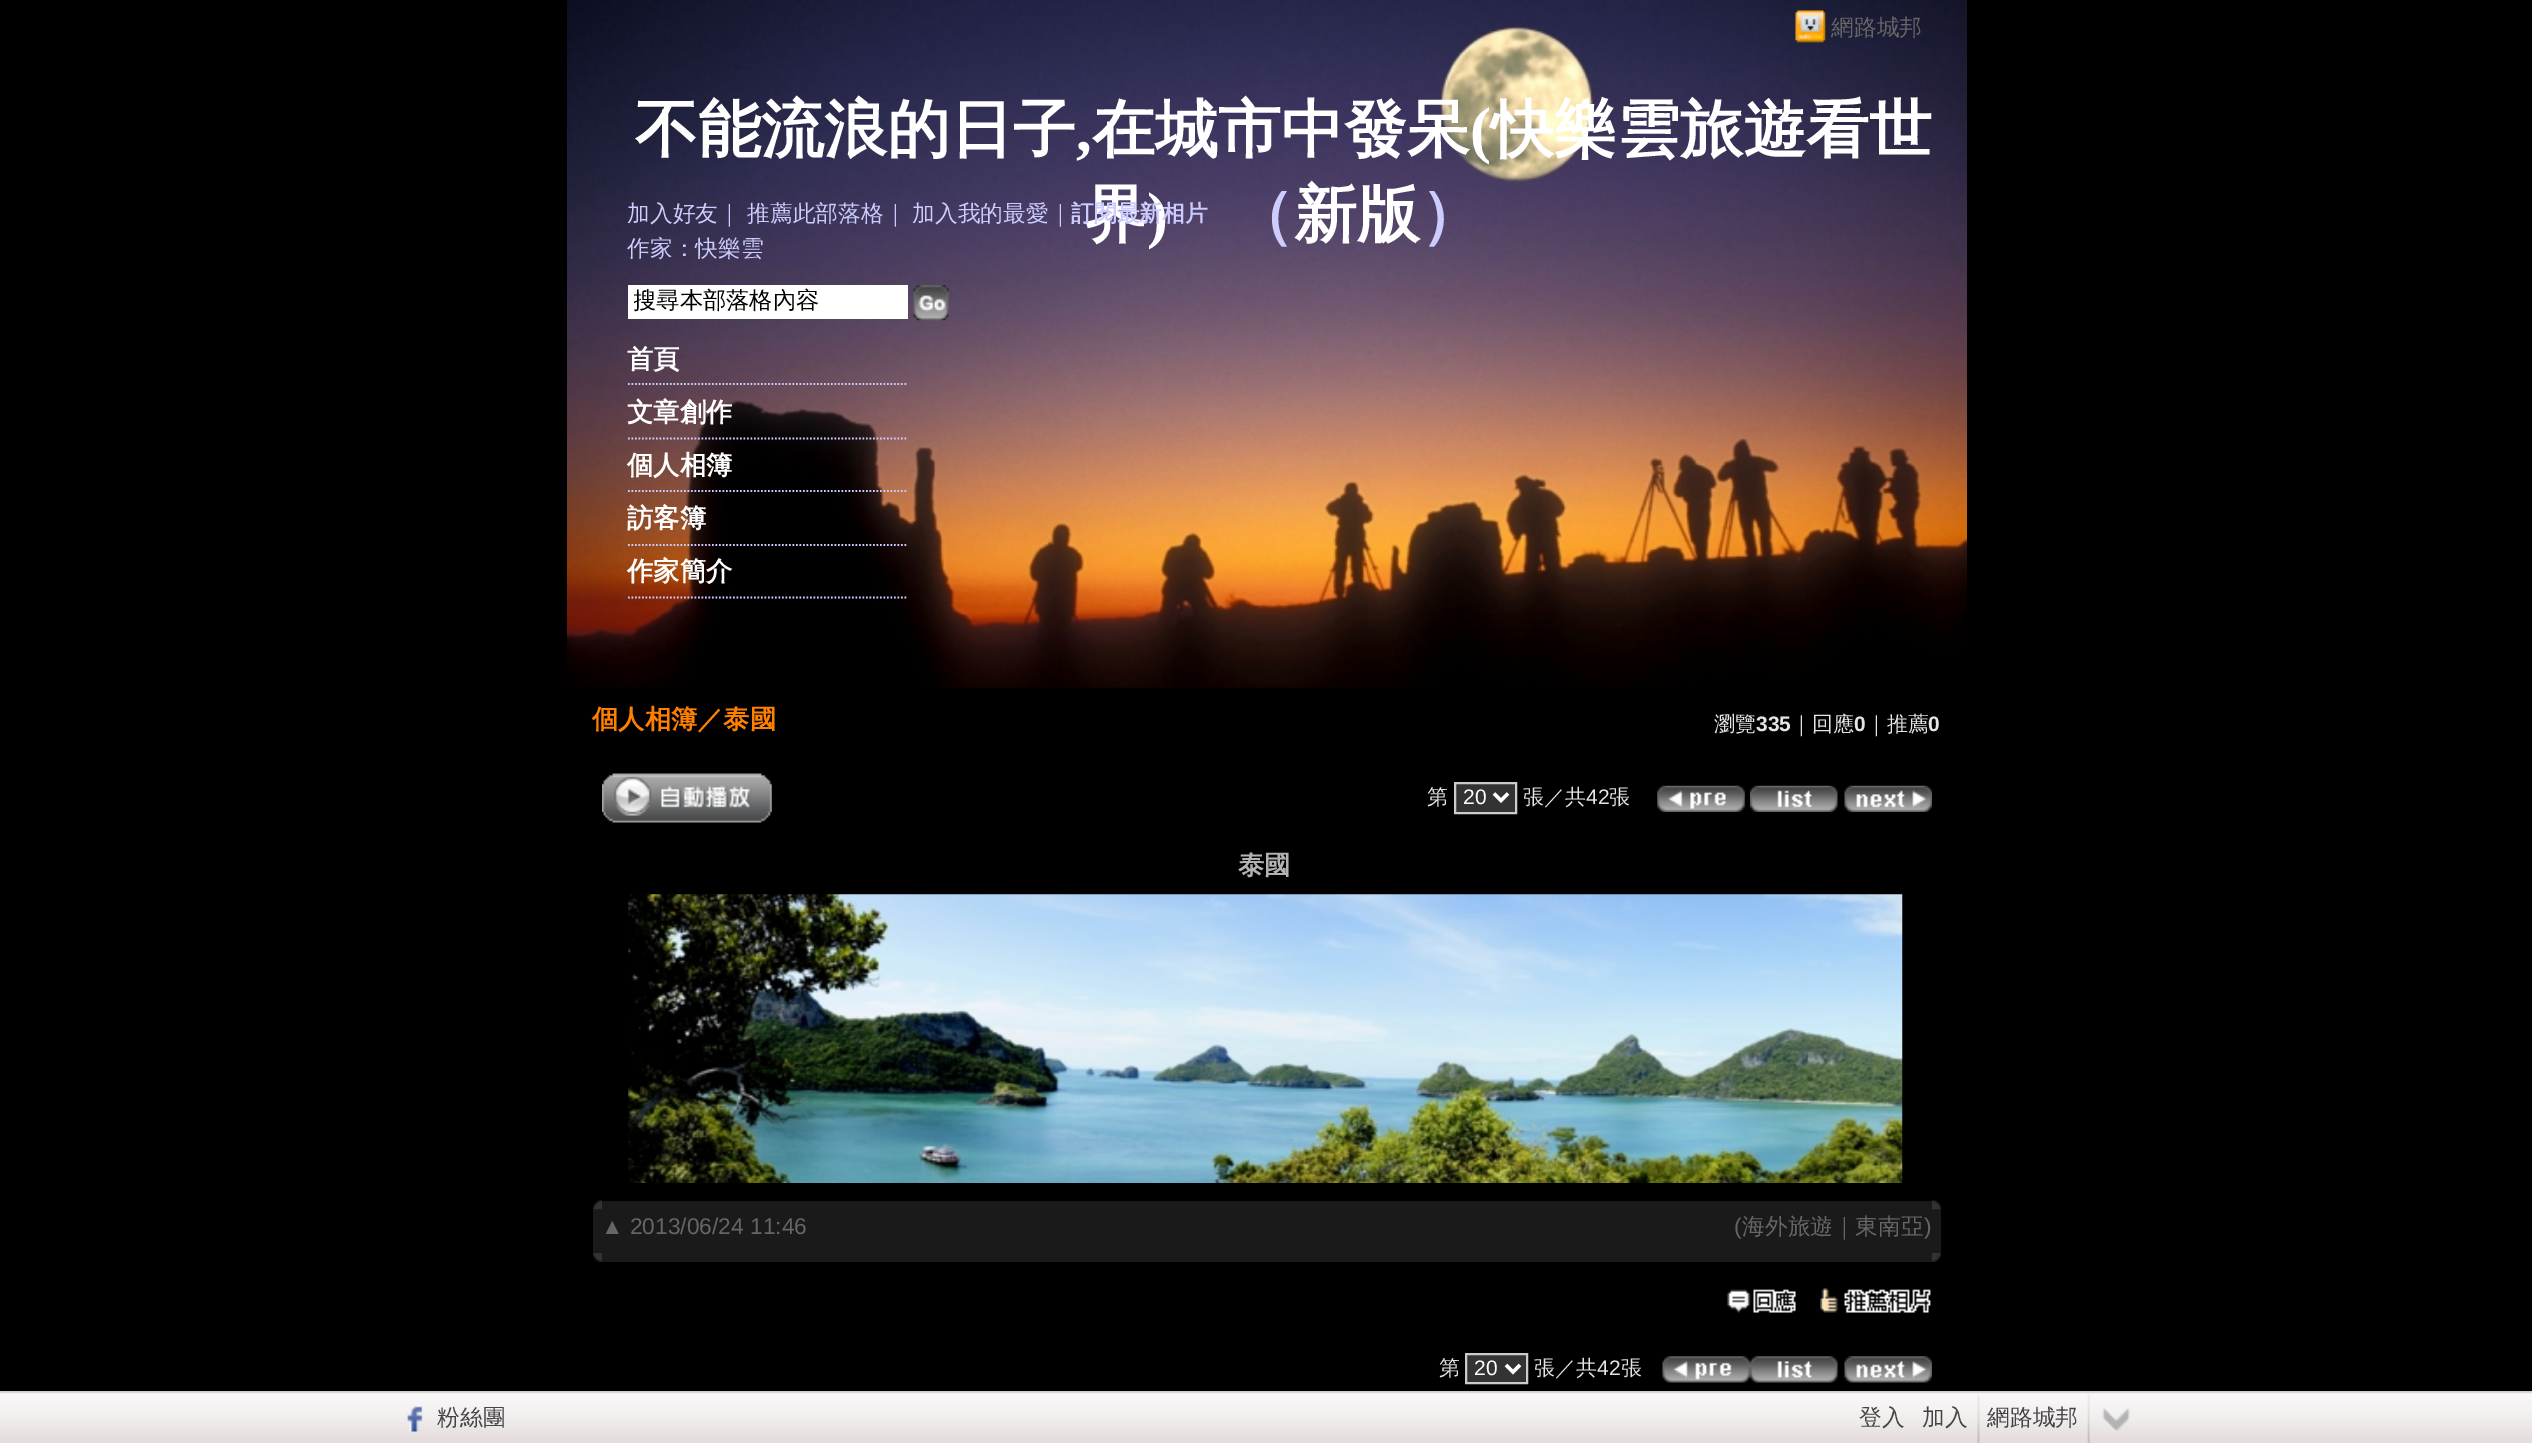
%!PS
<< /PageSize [2532 1443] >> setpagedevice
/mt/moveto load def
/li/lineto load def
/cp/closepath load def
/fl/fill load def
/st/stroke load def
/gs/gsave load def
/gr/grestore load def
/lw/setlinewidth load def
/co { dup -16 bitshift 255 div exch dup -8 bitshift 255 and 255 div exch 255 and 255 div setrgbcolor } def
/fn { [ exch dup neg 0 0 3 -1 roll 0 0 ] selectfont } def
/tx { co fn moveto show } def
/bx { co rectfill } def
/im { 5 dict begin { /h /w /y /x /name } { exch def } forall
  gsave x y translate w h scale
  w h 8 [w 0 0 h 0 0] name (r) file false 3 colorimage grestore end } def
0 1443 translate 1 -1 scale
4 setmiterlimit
0 0 2532 1443 16#000000 bx
(media/1.raw) 567 0 1400 688 im
(media/2.raw) 1795 10 31 33 im
628 285 280 34 16#FFFFFF bx
(media/3.raw) 913 285 36 36 im
16#CCCCFF co
1.8 lw
[1.75 1.75] 0 setdash
628 384 mt 908 384 li st
628 438.5 mt 908 438.5 li st
628 491 mt 908 491 li st
628 545 mt 908 545 li st
628 597.5 mt 908 597.5 li st
(media/4.raw) 602 773 170 50 im
16#333333 co
1455 783 mt 1516 783 li 1516 813 li 1455 813 li cp gs fl gr
16#CCCCCC co
2 lw
[] 0 setdash
st
16#FFFFFF co
3.5 lw
1494 793.5 mt 1501 800.5 li 1508 793.5 li st
(media/5.raw) 1657 785 88 27 im
(media/6.raw) 1750 785 88 27 im
(media/7.raw) 1844 785 88 27 im
(media/8.raw) 628 894 1275 289 im
593 1209 1348 44 16#1A1A1A bx
(media/9.raw) 593 1200 9 10 im
602 1201 1330 8 16#1A1A1A bx
(media/10.raw) 1932 1200 9 10 im
(media/11.raw) 593 1253 9 9 im
602 1253 1330 9 16#1A1A1A bx
(media/12.raw) 1932 1253 9 9 im
(media/13.raw) 1727 1289 69 24 im
(media/14.raw) 1820 1288 111 25 im
16#333333 co
1466 1354 mt 1527 1354 li 1527 1383 li 1466 1383 li cp gs fl gr
16#CCCCCC co
2 lw
st
16#FFFFFF co
3.5 lw
1506 1365 mt 1513 1372 li 1520 1365 li st
(media/15.raw) 1662 1356 88 27 im
(media/16.raw) 1750 1356 88 27 im
(media/17.raw) 1844 1356 88 27 im
(media/18.raw) 0 1391 2532 52 im
(media/19.raw) 407 1406 16 26 im
(media/20.raw) 1977 1394 3 49 im
(media/21.raw) 2087 1394 3 49 im
(media/22.raw) 2102 1408 28 24 im
(網路城邦) 1831 35 /WenQuanYiZenHei-Medium 22.75 16#666666 tx
(不能流浪的日子) 635 151 /WenQuanYiZenHei-Bold 63 16#FFFFFF tx
(,) 1076 151 /LiberationSerif-Bold 63 16#FFFFFF tx
(在城市中發呆) 1092 151 /WenQuanYiZenHei-Bold 63 16#FFFFFF tx
(\() 1470 151 /LiberationSerif-Bold 63 16#FFFFFF tx
(快樂雲旅遊看世) 1491 151 /WenQuanYiZenHei-Bold 63 16#FFFFFF tx
(界) 1084 236 /WenQuanYiZenHei-Bold 63 16#FFFFFF tx
(\)) 1147 236 /LiberationSerif-Bold 63 16#FFFFFF tx
(（) 1231 236 /WenQuanYiZenHei-Bold 63 16#CCCCFF tx
(新版) 1294 236 /WenQuanYiZenHei-Bold 63 16#FFFFFF tx
(）) 1420 236 /WenQuanYiZenHei-Bold 63 16#CCCCFF tx
(加入好友｜) 627 221 /WenQuanYiZenHei-Medium 22.75 16#CCCCFF tx
(推薦此部落格｜) 747 221 /WenQuanYiZenHei-Medium 22.75 16#CCCCFF tx
(加入我的最愛｜) 912 221 /WenQuanYiZenHei-Medium 22.75 16#CCCCFF tx
(訂閱最新相片) 1071 221 /WenQuanYiZenHei-Bold 22.75 16#CCCCFF tx
(作家：快樂雲) 627 256 /WenQuanYiZenHei-Medium 22.75 16#CCCCFF tx
gs
634 287 269 30 rectclip
(搜尋本部落格內容) 633 308 /WenQuanYiZenHei-Medium 23.25 16#000000 tx
gr
(首頁) 627 368 /WenQuanYiZenHei-Bold 26.25 16#FFFFFF tx
(文章創作) 627 421 /WenQuanYiZenHei-Bold 26.25 16#FFFFFF tx
(個人相簿) 627 474 /WenQuanYiZenHei-Bold 26.25 16#FFFFFF tx
(訪客簿) 627 527 /WenQuanYiZenHei-Bold 26.25 16#FFFFFF tx
(作家簡介) 627 580 /WenQuanYiZenHei-Bold 26.25 16#FFFFFF tx
(個人相簿／泰國) 592 728 /WenQuanYiZenHei-Bold 26.25 16#FF8000 tx
(瀏覽) 1714 731 /WenQuanYiZenHei-Medium 21 16#E5E5E5 tx
(335) 1756 731 /LiberationSans-Bold 21 16#E5E5E5 tx
(｜回應) 1791 731 /WenQuanYiZenHei-Medium 21 16#E5E5E5 tx
(0) 1854 731 /LiberationSans-Bold 21 16#E5E5E5 tx
(｜推薦) 1866 731 /WenQuanYiZenHei-Medium 21 16#E5E5E5 tx
(0) 1928 731 /LiberationSans-Bold 21 16#E5E5E5 tx
(第) 1427 804 /WenQuanYiZenHei-Medium 21 16#E5E5E5 tx
(20) 1463 804 /LiberationSans-Regular 21 16#FFFFFF tx
(張／共) 1523 804 /WenQuanYiZenHei-Medium 21 16#E5E5E5 tx
(42) 1586 804 /LiberationSans-Regular 21 16#E5E5E5 tx
(張) 1609 804 /WenQuanYiZenHei-Medium 21 16#E5E5E5 tx
(泰國) 1238 874 /WenQuanYiZenHei-Bold 26.25 16#B3B3B3 tx
(▲ 2013/06/24 11:46) 601 1234 /LiberationSans-Regular 22.75 16#666666 tx
(\() 1734 1234 /LiberationSans-Regular 22.75 16#666666 tx
(海外旅遊｜東南亞) 1742 1234 /WenQuanYiZenHei-Medium 22.75 16#666666 tx
(\)) 1924 1234 /LiberationSans-Regular 22.75 16#666666 tx
(第) 1439 1375 /WenQuanYiZenHei-Medium 21 16#E5E5E5 tx
(20) 1474 1375 /LiberationSans-Regular 21 16#FFFFFF tx
(張／共) 1534 1375 /WenQuanYiZenHei-Medium 21 16#E5E5E5 tx
(42) 1597 1375 /LiberationSans-Regular 21 16#E5E5E5 tx
(張) 1621 1375 /WenQuanYiZenHei-Medium 21 16#E5E5E5 tx
(粉絲團) 437 1425 /WenQuanYiZenHei-Medium 22.75 16#444444 tx
(登入) 1859 1425 /WenQuanYiZenHei-Medium 22.75 16#444444 tx
(加入) 1922 1425 /WenQuanYiZenHei-Medium 22.75 16#444444 tx
(網路城邦) 1987 1425 /WenQuanYiZenHei-Medium 22.75 16#444444 tx
showpage
